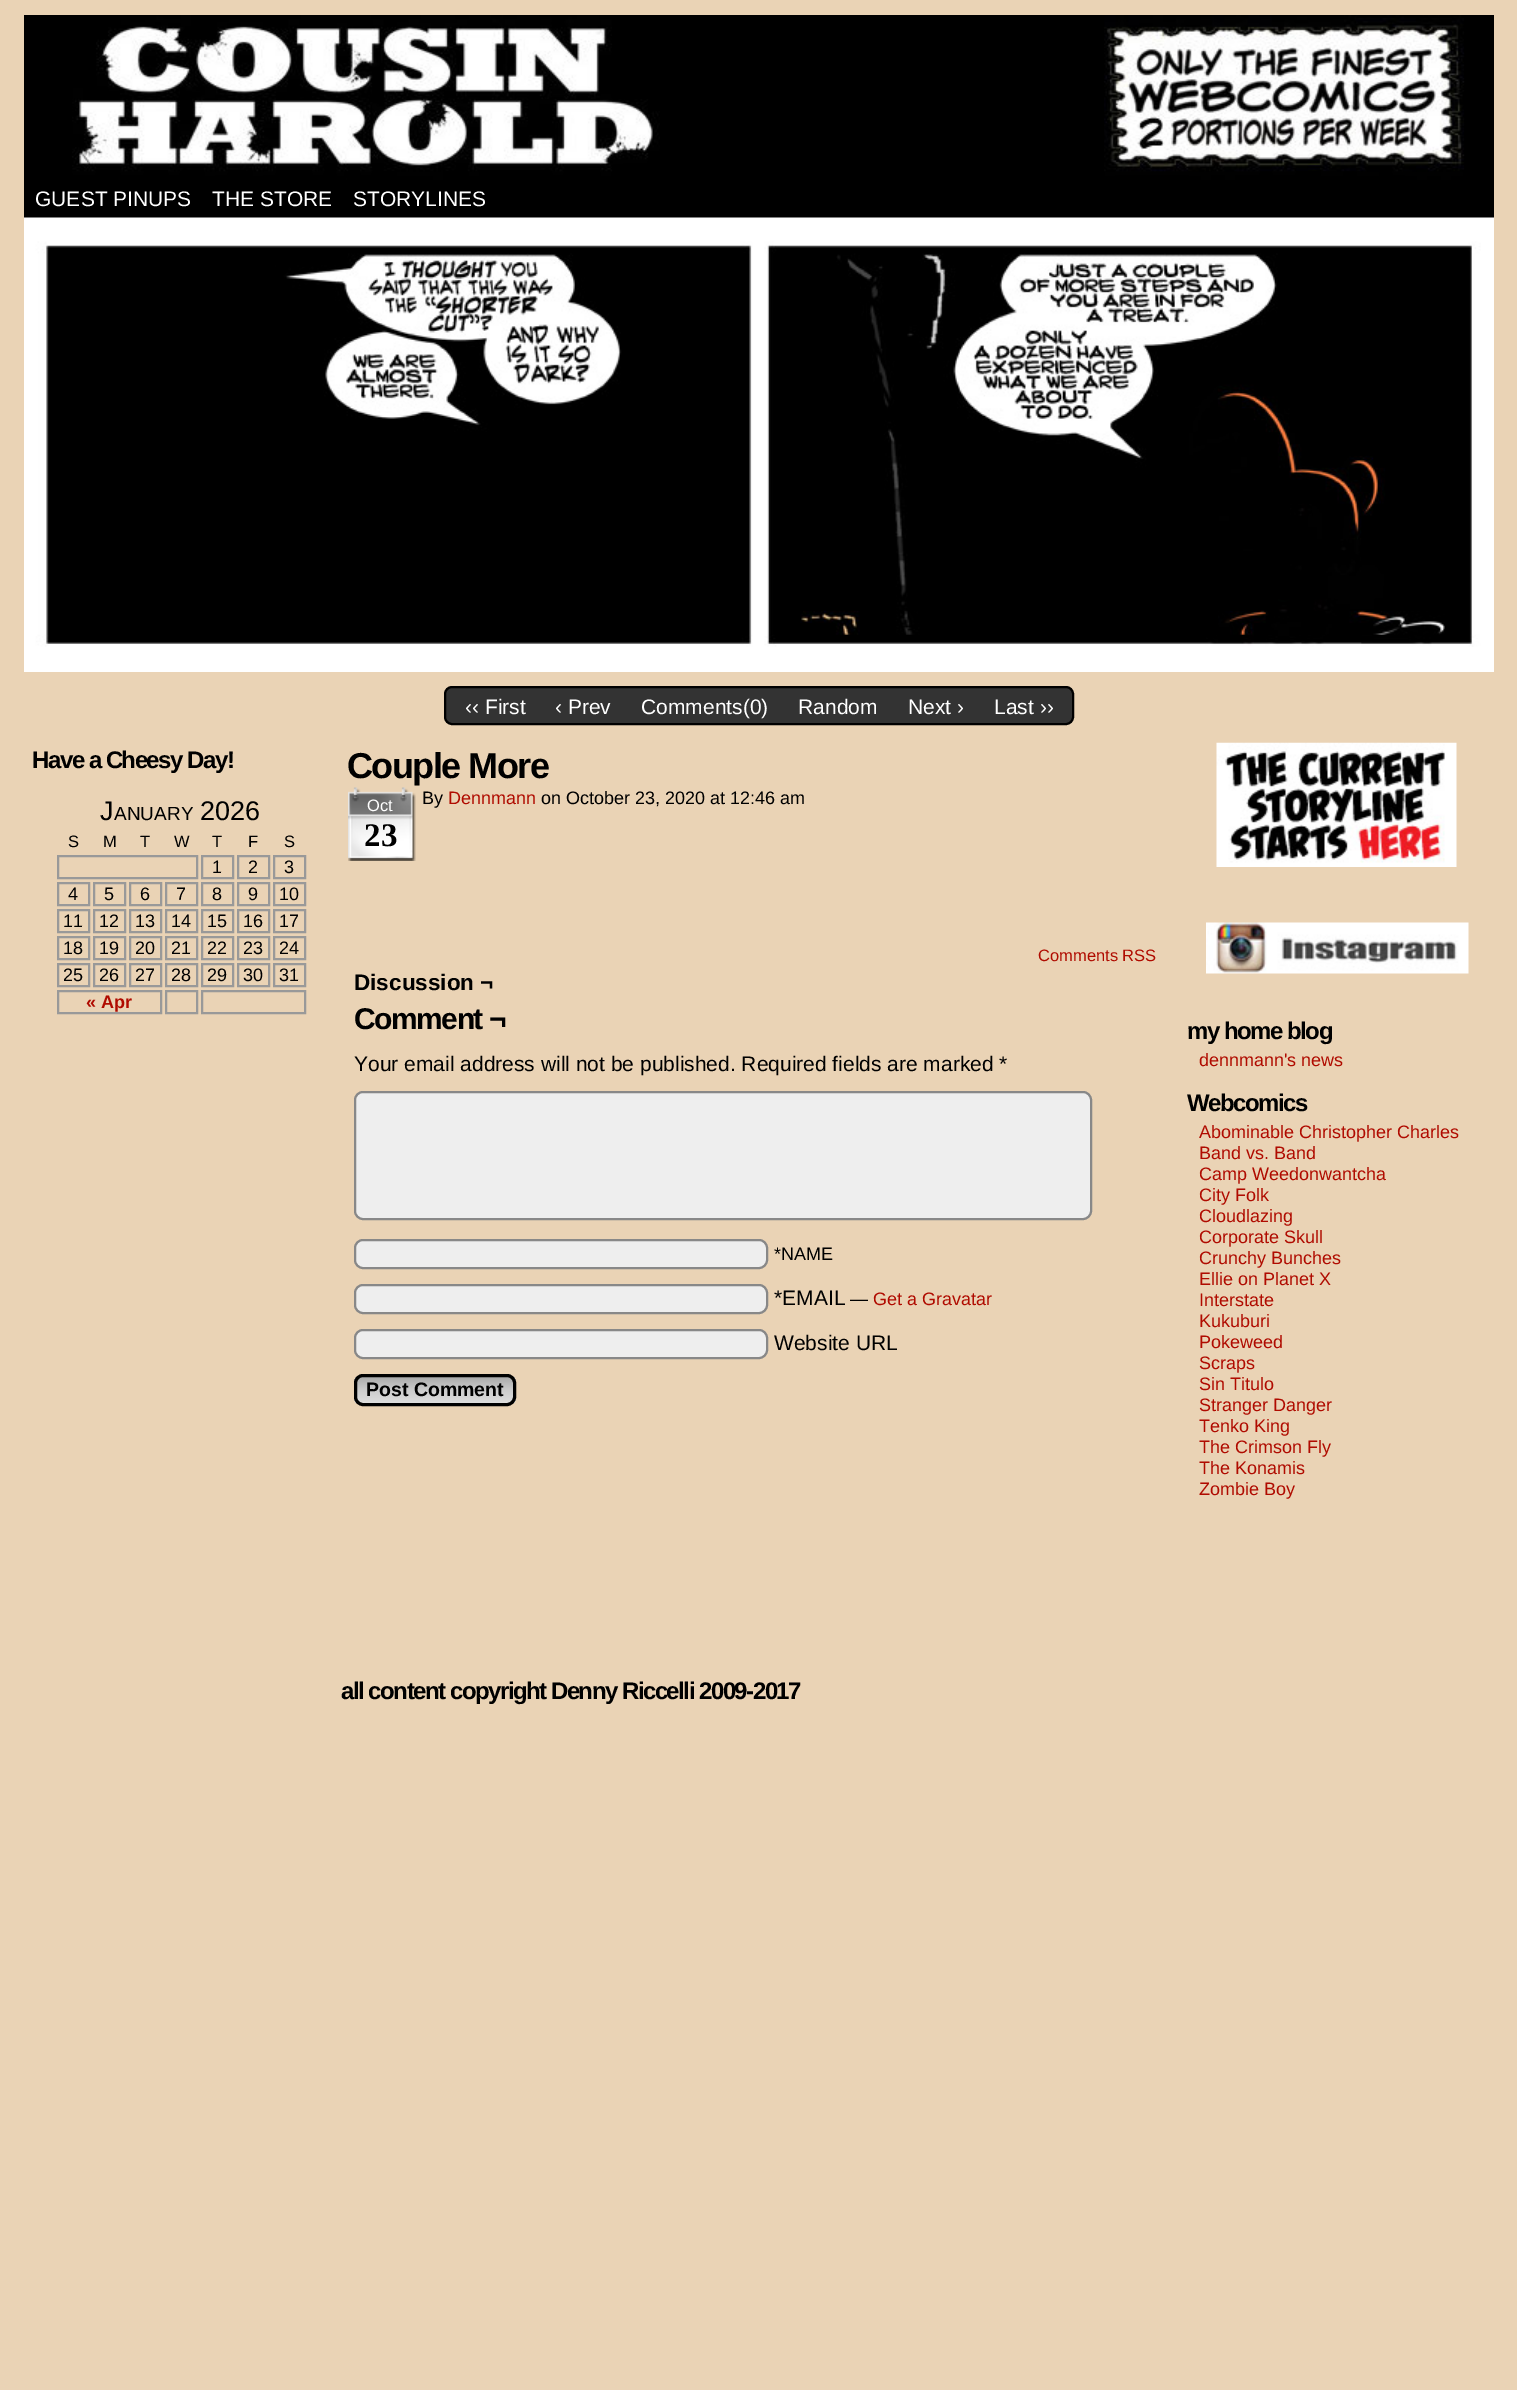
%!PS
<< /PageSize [1517 2390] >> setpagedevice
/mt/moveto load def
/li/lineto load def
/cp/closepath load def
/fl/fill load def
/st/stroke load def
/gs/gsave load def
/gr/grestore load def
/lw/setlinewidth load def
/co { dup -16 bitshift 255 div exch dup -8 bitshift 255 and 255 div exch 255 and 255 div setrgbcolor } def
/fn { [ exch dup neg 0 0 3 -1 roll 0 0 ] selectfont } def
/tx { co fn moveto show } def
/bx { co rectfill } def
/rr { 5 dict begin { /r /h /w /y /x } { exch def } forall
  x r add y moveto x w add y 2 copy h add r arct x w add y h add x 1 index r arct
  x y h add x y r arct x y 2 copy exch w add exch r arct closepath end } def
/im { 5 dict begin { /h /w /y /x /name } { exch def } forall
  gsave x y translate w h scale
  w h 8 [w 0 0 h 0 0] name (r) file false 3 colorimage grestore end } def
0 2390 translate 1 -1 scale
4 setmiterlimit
0 0 1517 2390 16#EAD3B5 bx
(media/1.raw) 24 15 1470 165 im
24 180 1470 38 16#000000 bx
(media/2.raw) 24 217 1470 455 im
16#333333 co
445 687 628 37 7 rr gs fl gr
16#000000 co
2 lw
st
16#999999 co
58 856 139 22 rectstroke
202 856 31 22 rectstroke
238 856 31 22 rectstroke
274 856 31 22 rectstroke
58 883 31 22 rectstroke
94 883 31 22 rectstroke
130 883 31 22 rectstroke
166 883 31 22 rectstroke
202 883 31 22 rectstroke
238 883 31 22 rectstroke
274 883 31 22 rectstroke
58 910 31 22 rectstroke
94 910 31 22 rectstroke
130 910 31 22 rectstroke
166 910 31 22 rectstroke
202 910 31 22 rectstroke
238 910 31 22 rectstroke
274 910 31 22 rectstroke
58 937 31 22 rectstroke
94 937 31 22 rectstroke
130 937 31 22 rectstroke
166 937 31 22 rectstroke
202 937 31 22 rectstroke
238 937 31 22 rectstroke
274 937 31 22 rectstroke
58 964 31 22 rectstroke
94 964 31 22 rectstroke
130 964 31 22 rectstroke
166 964 31 22 rectstroke
202 964 31 22 rectstroke
238 964 31 22 rectstroke
274 964 31 22 rectstroke
58 991 103 22 rectstroke
166 991 31 22 rectstroke
202 991 103 22 rectstroke
(media/3.raw) 348 787 68 74 im
16#EEEEEE co
355 1092 736 127 8 rr gs fl gr
16#888888 co
st
16#EEEEEE co
355 1240 412 28 8 rr gs fl gr
16#888888 co
st
16#EEEEEE co
355 1285 412 28 8 rr gs fl gr
16#888888 co
st
16#EEEEEE co
355 1330 412 28 8 rr gs fl gr
16#888888 co
st
gs
354 1374 162 32 9 rr clip newpath
gs 354 1377 mt 516 1377 li 516 1403 li 354 1403 li cp clip newpath
<< /ShadingType 2 /ColorSpace /DeviceRGB /Coords [435 1377 435 1403] /Extend [true true] /Function << /FunctionType 3 /Domain [0 1] /Functions [<< /FunctionType 2 /Domain [0 1] /C0 [.667 .667 .667] /C1 [.8 .8 .8] /N 1 >> << /FunctionType 2 /Domain [0 1] /C0 [.8 .8 .8] /C1 [.867 .867 .867] /N 1 >>] /Bounds [.5] /Encode [0 1 0 1] >> >> shfill gr
gr
16#000000 co
3 lw
355.5 1375.5 159 29 7.5 rr st
(media/4.raw) 1216 742 241 125 im
(media/5.raw) 1206 922 263 52 im
(GUEST PINUPS) 35 206 /LiberationSans-Regular 21 16#FFFFFF tx
(THE STORE) 212 206 /LiberationSans-Regular 21 16#FFFFFF tx
(STORYLINES) 353 206 /LiberationSans-Regular 21 16#FFFFFF tx
(‹‹ First) 465 714 /LiberationSans-Regular 21 16#FFFFFF tx
(‹ Prev) 555 714 /LiberationSans-Regular 21 16#FFFFFF tx
(Comments\(0\)) 641 714 /LiberationSans-Regular 21 16#FFFFFF tx
(Random) 798 714 /LiberationSans-Regular 21 16#FFFFFF tx
(Next ›) 908 714 /LiberationSans-Regular 21 16#FFFFFF tx
(Last ››) 994 714 /LiberationSans-Regular 21 16#FFFFFF tx
/LiberationSans-Bold 24 fn
16#000000 co
32 768 mt -1.5 0 (Have a Cheesy Day!) ashow
(J) 100 820 /LiberationSans-Regular 27 16#000000 tx
(ANUARY) 114 820 /LiberationSans-Regular 19 16#000000 tx
(2026) 200 820 /LiberationSans-Regular 27 16#000000 tx
(S) 68 847 /LiberationSans-Regular 16.5 16#000000 tx
(M) 103 847 /LiberationSans-Regular 16.5 16#000000 tx
(T) 140 847 /LiberationSans-Regular 16.5 16#000000 tx
(W) 174 847 /LiberationSans-Regular 16.5 16#000000 tx
(T) 212 847 /LiberationSans-Regular 16.5 16#000000 tx
(F) 248 847 /LiberationSans-Regular 16.5 16#000000 tx
(S) 284 847 /LiberationSans-Regular 16.5 16#000000 tx
(1) 212 873 /LiberationSans-Regular 18 16#000000 tx
(2) 248 873 /LiberationSans-Regular 18 16#000000 tx
(3) 284 873 /LiberationSans-Regular 18 16#000000 tx
(4) 68 900 /LiberationSans-Regular 18 16#000000 tx
(5) 104 900 /LiberationSans-Regular 18 16#000000 tx
(6) 140 900 /LiberationSans-Regular 18 16#000000 tx
(7) 176 900 /LiberationSans-Regular 18 16#000000 tx
(8) 212 900 /LiberationSans-Regular 18 16#000000 tx
(9) 248 900 /LiberationSans-Regular 18 16#000000 tx
(10) 279 900 /LiberationSans-Regular 18 16#000000 tx
(11) 63 927 /LiberationSans-Regular 18 16#000000 tx
(12) 99 927 /LiberationSans-Regular 18 16#000000 tx
(13) 135 927 /LiberationSans-Regular 18 16#000000 tx
(14) 171 927 /LiberationSans-Regular 18 16#000000 tx
(15) 207 927 /LiberationSans-Regular 18 16#000000 tx
(16) 243 927 /LiberationSans-Regular 18 16#000000 tx
(17) 279 927 /LiberationSans-Regular 18 16#000000 tx
(18) 63 954 /LiberationSans-Regular 18 16#000000 tx
(19) 99 954 /LiberationSans-Regular 18 16#000000 tx
(20) 135 954 /LiberationSans-Regular 18 16#000000 tx
(21) 171 954 /LiberationSans-Regular 18 16#000000 tx
(22) 207 954 /LiberationSans-Regular 18 16#000000 tx
(23) 243 954 /LiberationSans-Regular 18 16#000000 tx
(24) 279 954 /LiberationSans-Regular 18 16#000000 tx
(25) 63 981 /LiberationSans-Regular 18 16#000000 tx
(26) 99 981 /LiberationSans-Regular 18 16#000000 tx
(27) 135 981 /LiberationSans-Regular 18 16#000000 tx
(28) 171 981 /LiberationSans-Regular 18 16#000000 tx
(29) 207 981 /LiberationSans-Regular 18 16#000000 tx
(30) 243 981 /LiberationSans-Regular 18 16#000000 tx
(31) 279 981 /LiberationSans-Regular 18 16#000000 tx
(« Apr) 86 1008 /LiberationSans-Bold 18 16#B00B00 tx
/LiberationSans-Bold 36 fn
16#000000 co
347 778 mt -1.5 0 (Couple More) ashow
(Oct) 367 811 /LiberationSans-Regular 16.5 16#FFFFFF tx
(23) 364 846 /LiberationSerif-Bold 33 16#000000 tx
(By) 422 804 /LiberationSans-Regular 18 16#000000 tx
(Dennmann) 448 804 /LiberationSans-Regular 18 16#B00B00 tx
(on October 23, 2020 at 12:46 am) 541 804 /LiberationSans-Regular 18 16#000000 tx
(Comments RSS) 1038 961 /LiberationSans-Regular 16.5 16#B00B00 tx
(Discussion ¬) 354 990 /LiberationSans-Bold 22.5 16#000000 tx
/LiberationSans-Bold 30 fn
354 1029 mt -1.5 0 (Comment ¬) ashow
(Your email address will not be published. Required fields are marked *) 354 1071 /LiberationSans-Regular 21 16#000000 tx
(*NAME) 774 1260 /LiberationSans-Regular 18 16#000000 tx
(*EMAIL) 774 1305 /LiberationSans-Regular 21 16#000000 tx
(—) 850 1305 /LiberationSans-Regular 18 16#000000 tx
(Get a Gravatar) 873 1305 /LiberationSans-Regular 18 16#B00B00 tx
(Website URL) 774 1350 /LiberationSans-Regular 21 16#000000 tx
(Post Comment) 366 1396 /LiberationSans-Bold 19.5 16#000000 tx
/LiberationSans-Bold 24 fn
341 1699 mt -1.5 0 (all content copyright Denny Riccelli 2009-2017) ashow
1187 1039 mt -1.5 0 (my home blog) ashow
(dennmann's news) 1199 1066 /LiberationSans-Regular 18 16#B00B00 tx
/LiberationSans-Bold 24 fn
16#000000 co
1187 1111 mt -1.5 0 (Webcomics) ashow
(Abominable Christopher Charles) 1199 1138 /LiberationSans-Regular 18 16#B00B00 tx
(Band vs. Band) 1199 1159 /LiberationSans-Regular 18 16#B00B00 tx
(Camp Weedonwantcha) 1199 1180 /LiberationSans-Regular 18 16#B00B00 tx
(City Folk) 1199 1201 /LiberationSans-Regular 18 16#B00B00 tx
(Cloudlazing) 1199 1222 /LiberationSans-Regular 18 16#B00B00 tx
(Corporate Skull) 1199 1243 /LiberationSans-Regular 18 16#B00B00 tx
(Crunchy Bunches) 1199 1264 /LiberationSans-Regular 18 16#B00B00 tx
(Ellie on Planet X) 1199 1285 /LiberationSans-Regular 18 16#B00B00 tx
(Interstate) 1199 1306 /LiberationSans-Regular 18 16#B00B00 tx
(Kukuburi) 1199 1327 /LiberationSans-Regular 18 16#B00B00 tx
(Pokeweed) 1199 1348 /LiberationSans-Regular 18 16#B00B00 tx
(Scraps) 1199 1369 /LiberationSans-Regular 18 16#B00B00 tx
(Sin Titulo) 1199 1390 /LiberationSans-Regular 18 16#B00B00 tx
(Stranger Danger) 1199 1411 /LiberationSans-Regular 18 16#B00B00 tx
(Tenko King) 1199 1432 /LiberationSans-Regular 18 16#B00B00 tx
(The Crimson Fly) 1199 1453 /LiberationSans-Regular 18 16#B00B00 tx
(The Konamis) 1199 1474 /LiberationSans-Regular 18 16#B00B00 tx
(Zombie Boy) 1199 1495 /LiberationSans-Regular 18 16#B00B00 tx
showpage
